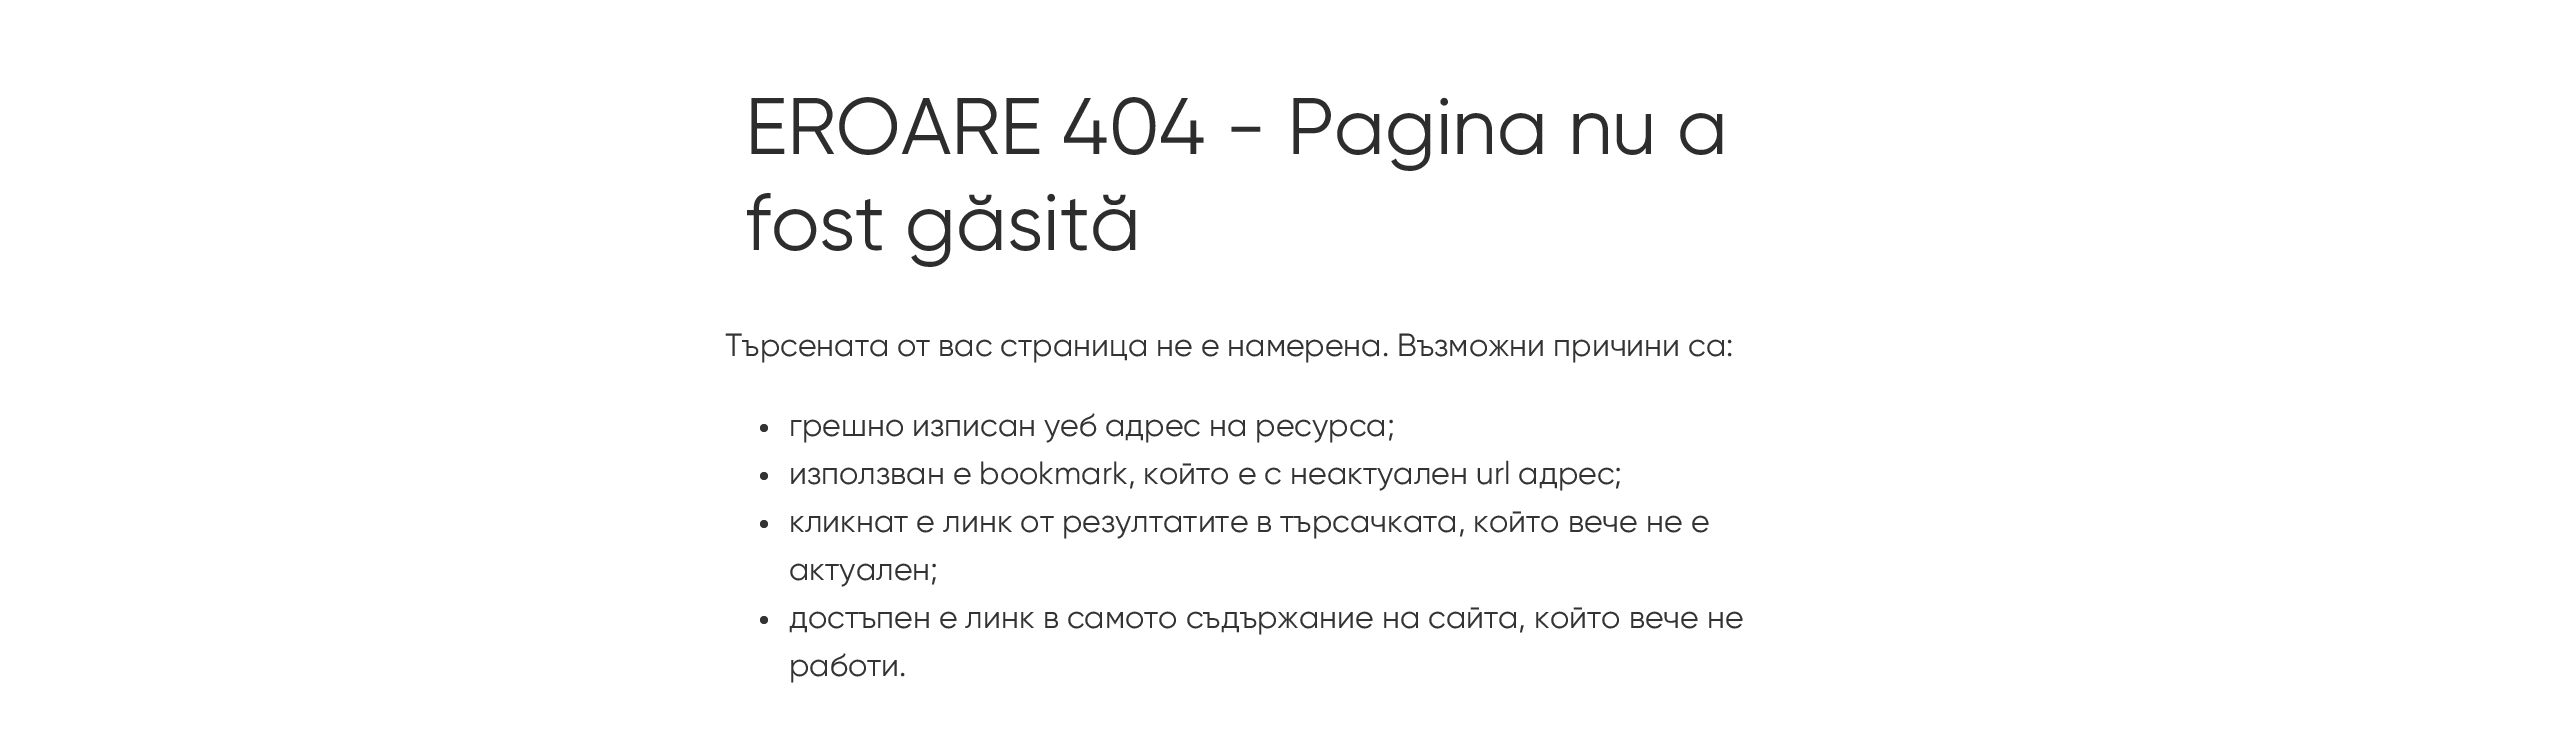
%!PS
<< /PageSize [2565 743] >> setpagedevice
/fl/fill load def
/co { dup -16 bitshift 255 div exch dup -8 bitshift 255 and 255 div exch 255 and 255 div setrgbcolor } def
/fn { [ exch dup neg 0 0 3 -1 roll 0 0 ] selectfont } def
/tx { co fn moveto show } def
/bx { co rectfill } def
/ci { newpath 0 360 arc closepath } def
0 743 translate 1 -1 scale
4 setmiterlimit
0 0 2565 743 16#FFFFFF bx
16#333333 co
764 428 4 ci fl
764 476 4 ci fl
764 524 4 ci fl
764 620 4 ci fl
(EROARE 404 - Pagina nu a) 745 154 /Gilroy-Regular 80 16#2D2D2D tx
(fost găsită) 745 250 /Gilroy-Regular 80 16#2D2D2D tx
(Търсената от вас страница не е намерена. Възможни причини са:) 725 356 /Gilroy-Regular 32 16#333333 tx
(грешно изписан уеб адрес на ресурса;) 789 436 /Gilroy-Regular 32 16#333333 tx
(използван е bookmark, който е с неактуален url адрес;) 789 484 /Gilroy-Regular 32 16#333333 tx
(кликнат е линк от резултатите в търсачката, който вече не е) 789 532 /Gilroy-Regular 32 16#333333 tx
(актуален;) 789 580 /Gilroy-Regular 32 16#333333 tx
(достъпен е линк в самото съдържание на сайта, който вече не) 789 628 /Gilroy-Regular 32 16#333333 tx
(работи.) 789 676 /Gilroy-Regular 32 16#333333 tx
showpage
